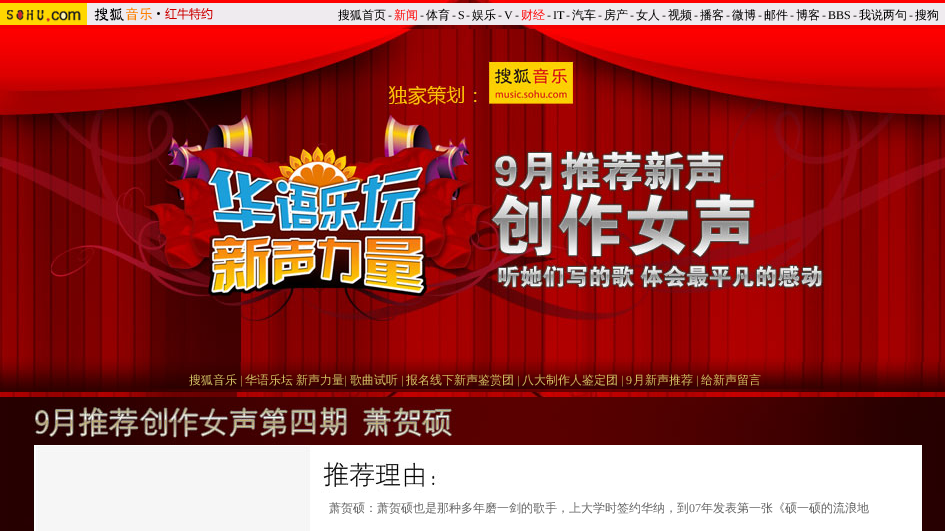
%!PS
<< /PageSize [945 531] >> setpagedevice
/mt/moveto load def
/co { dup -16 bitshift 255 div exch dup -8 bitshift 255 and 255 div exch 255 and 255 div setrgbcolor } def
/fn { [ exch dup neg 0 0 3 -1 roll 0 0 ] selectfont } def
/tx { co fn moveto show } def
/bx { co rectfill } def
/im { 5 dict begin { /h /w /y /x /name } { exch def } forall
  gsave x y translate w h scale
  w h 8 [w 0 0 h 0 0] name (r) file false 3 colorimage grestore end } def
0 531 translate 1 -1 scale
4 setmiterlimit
0 0 945 531 16#FFFFFF bx
(media/1.raw) 0 0 945 397 im
87 3 858 22 16#EFEBEF bx
(media/2.raw) 0 3 87 22 im
(media/3.raw) 94 4 119 21 im
(media/4.raw) 0 29 945 333 im
(media/5.raw) 0 362 945 30 im
(media/6.raw) 0 397 945 134 im
(搜狐首页) 338 19 /WenQuanYiZenHei-Medium 12 16#000000 tx
(-) 388 19 /LiberationSerif-Regular 12 16#000000 tx
(新闻) 394 19 /WenQuanYiZenHei-Medium 12 16#FF0000 tx
(-) 420 19 /LiberationSerif-Regular 12 16#000000 tx
(体育) 426 19 /WenQuanYiZenHei-Medium 12 16#000000 tx
(-) 452 19 /LiberationSerif-Regular 12 16#000000 tx
(S) 458 19 /LiberationSerif-Regular 12 16#000000 tx
(-) 466 19 /LiberationSerif-Regular 12 16#000000 tx
(娱乐) 472 19 /WenQuanYiZenHei-Medium 12 16#000000 tx
(-) 498 19 /LiberationSerif-Regular 12 16#000000 tx
(V) 504 19 /LiberationSerif-Regular 12 16#000000 tx
(-) 515 19 /LiberationSerif-Regular 12 16#000000 tx
(财经) 521 19 /WenQuanYiZenHei-Medium 12 16#FF0000 tx
(-) 547 19 /LiberationSerif-Regular 12 16#000000 tx
(IT) 553 19 /LiberationSerif-Regular 12 16#000000 tx
(-) 566 19 /LiberationSerif-Regular 12 16#000000 tx
(汽车) 572 19 /WenQuanYiZenHei-Medium 12 16#000000 tx
(-) 598 19 /LiberationSerif-Regular 12 16#000000 tx
(房产) 604 19 /WenQuanYiZenHei-Medium 12 16#000000 tx
(-) 630 19 /LiberationSerif-Regular 12 16#000000 tx
(女人) 636 19 /WenQuanYiZenHei-Medium 12 16#000000 tx
(-) 662 19 /LiberationSerif-Regular 12 16#000000 tx
(视频) 668 19 /WenQuanYiZenHei-Medium 12 16#000000 tx
(-) 694 19 /LiberationSerif-Regular 12 16#000000 tx
(播客) 700 19 /WenQuanYiZenHei-Medium 12 16#000000 tx
(-) 726 19 /LiberationSerif-Regular 12 16#000000 tx
(微博) 732 19 /WenQuanYiZenHei-Medium 12 16#000000 tx
(-) 758 19 /LiberationSerif-Regular 12 16#000000 tx
(邮件) 764 19 /WenQuanYiZenHei-Medium 12 16#000000 tx
(-) 790 19 /LiberationSerif-Regular 12 16#000000 tx
(博客) 796 19 /WenQuanYiZenHei-Medium 12 16#000000 tx
(-) 822 19 /LiberationSerif-Regular 12 16#000000 tx
(BBS) 828 19 /LiberationSerif-Regular 12 16#000000 tx
(-) 853 19 /LiberationSerif-Regular 12 16#000000 tx
(我说两句) 859 19 /WenQuanYiZenHei-Medium 12 16#000000 tx
(-) 909 19 /LiberationSerif-Regular 12 16#000000 tx
(搜狗) 915 19 /WenQuanYiZenHei-Medium 12 16#000000 tx
(搜狐音乐) 189 384 /WenQuanYiZenHei-Medium 12 16#D0BF64 tx
(|) 240 384 /LiberationSerif-Regular 12 16#D0BF64 tx
/WenQuanYiZenHei-Medium 12 fn
245 384 mt -1 0 32 (华语乐坛 新声力量) widthshow
(|) 344 384 /LiberationSerif-Regular 12 16#D0BF64 tx
(歌曲试听) 350 384 /WenQuanYiZenHei-Medium 12 16#D0BF64 tx
(|) 401 384 /LiberationSerif-Regular 12 16#D0BF64 tx
(报名线下新声鉴赏团) 406 384 /WenQuanYiZenHei-Medium 12 16#D0BF64 tx
(|) 517 384 /LiberationSerif-Regular 12 16#D0BF64 tx
(八大制作人鉴定团) 522 384 /WenQuanYiZenHei-Medium 12 16#D0BF64 tx
(| 9) 621 384 /LiberationSerif-Regular 12 16#D0BF64 tx
(月新声推荐) 633 384 /WenQuanYiZenHei-Medium 12 16#D0BF64 tx
(|) 696 384 /LiberationSerif-Regular 12 16#D0BF64 tx
(给新声留言) 701 384 /WenQuanYiZenHei-Medium 12 16#D0BF64 tx
(萧贺硕：萧贺硕也是那种多年磨一剑的歌手，上大学时签约华纳，到) 329 512 /WenQuanYiZenHei-Medium 12 16#666666 tx
(07) 689 512 /LiberationSerif-Regular 12 16#666666 tx
(年发表第一张《硕一硕的流浪地) 701 512 /WenQuanYiZenHei-Medium 12 16#666666 tx
showpage
